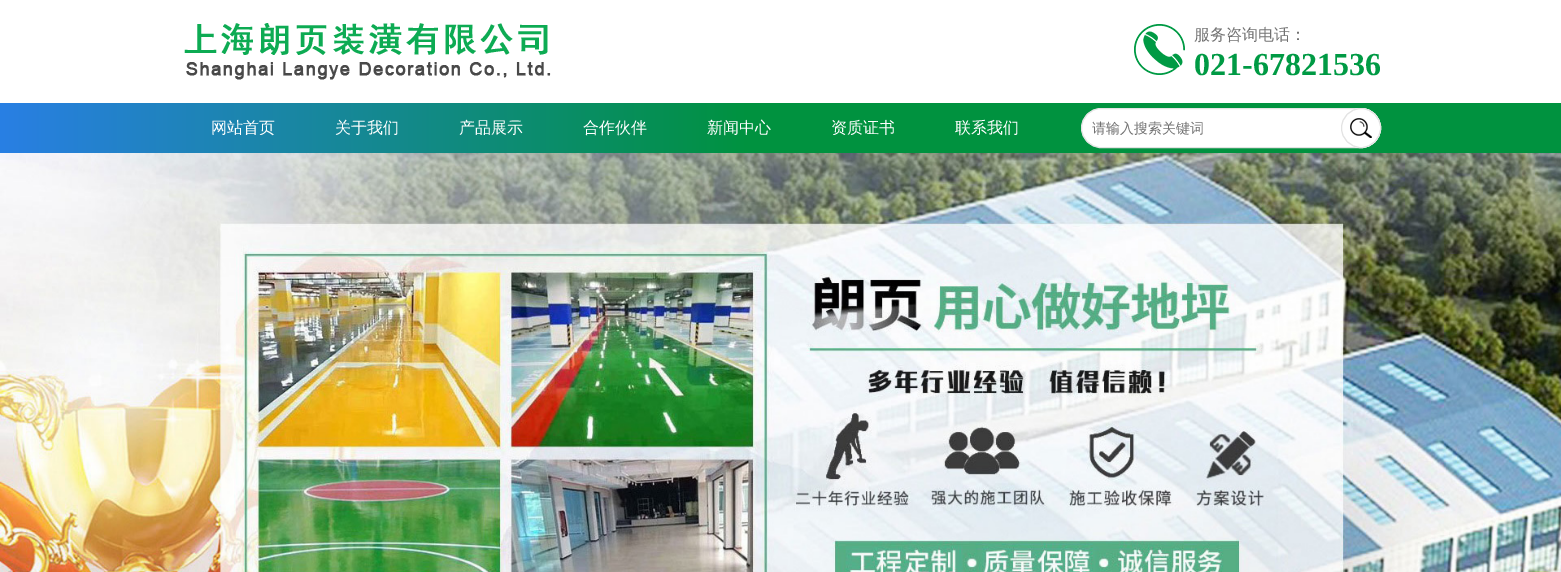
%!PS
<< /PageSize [1561 572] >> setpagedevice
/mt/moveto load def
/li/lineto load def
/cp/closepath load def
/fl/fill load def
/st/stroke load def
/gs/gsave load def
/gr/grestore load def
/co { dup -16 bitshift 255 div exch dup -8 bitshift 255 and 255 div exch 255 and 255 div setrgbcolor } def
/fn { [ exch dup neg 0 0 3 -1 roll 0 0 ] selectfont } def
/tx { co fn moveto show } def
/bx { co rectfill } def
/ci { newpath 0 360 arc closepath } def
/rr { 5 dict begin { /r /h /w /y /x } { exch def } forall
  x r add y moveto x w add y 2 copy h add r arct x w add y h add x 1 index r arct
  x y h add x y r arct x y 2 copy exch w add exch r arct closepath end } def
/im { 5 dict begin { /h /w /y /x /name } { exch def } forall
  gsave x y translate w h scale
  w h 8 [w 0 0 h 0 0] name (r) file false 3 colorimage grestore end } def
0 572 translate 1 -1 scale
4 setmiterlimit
0 0 1561 572 16#FFFFFF bx
(media/1.raw) 184 23 367 57 im
(media/2.raw) 1134 24 51 51 im
gs 0 103 mt 1561 103 li 1561 153 li 0 153 li cp clip newpath
<< /ShadingType 2 /ColorSpace /DeviceRGB /Coords [1561 103 0 103] /Extend [true true] /Function << /FunctionType 3 /Domain [0 1] /Functions [<< /FunctionType 2 /Domain [0 1] /C0 [0 .573 .247] /C1 [0 .573 .247] /N 1 >> << /FunctionType 2 /Domain [0 1] /C0 [0 .573 .247] /C1 [.161 .498 .894] /N 1 >>] /Bounds [.52] /Encode [0 1 0 1] >> >> shfill gr
1081.5 108.5 299 39 19.5 rr gs fl gr
16#E3E3E3 co
st
16#FFFFFF co
1361 128 20 ci fl
(media/3.raw) 1350 118 22 20 im
16#E3E3E3 co
1361 128 19.5 ci st
(media/4.raw) 0 153 1561 419 im
(服务咨询电话：) 1194 40 /WenQuanYiZenHei-Medium 16 16#727272 tx
(021-67821536) 1194 75 /LiberationSerif-Bold 32 16#009A44 tx
(网站首页) 211 133 /WenQuanYiZenHei-Medium 16 16#FFFFFF tx
(关于我们) 335 133 /WenQuanYiZenHei-Medium 16 16#FFFFFF tx
(产品展示) 459 133 /WenQuanYiZenHei-Medium 16 16#FFFFFF tx
(合作伙伴) 583 133 /WenQuanYiZenHei-Medium 16 16#FFFFFF tx
(新闻中心) 707 133 /WenQuanYiZenHei-Medium 16 16#FFFFFF tx
(资质证书) 831 133 /WenQuanYiZenHei-Medium 16 16#FFFFFF tx
(联系我们) 955 133 /WenQuanYiZenHei-Medium 16 16#FFFFFF tx
(请输入搜索关键词) 1092 133 /WenQuanYiZenHei-Medium 14 16#727272 tx
showpage
